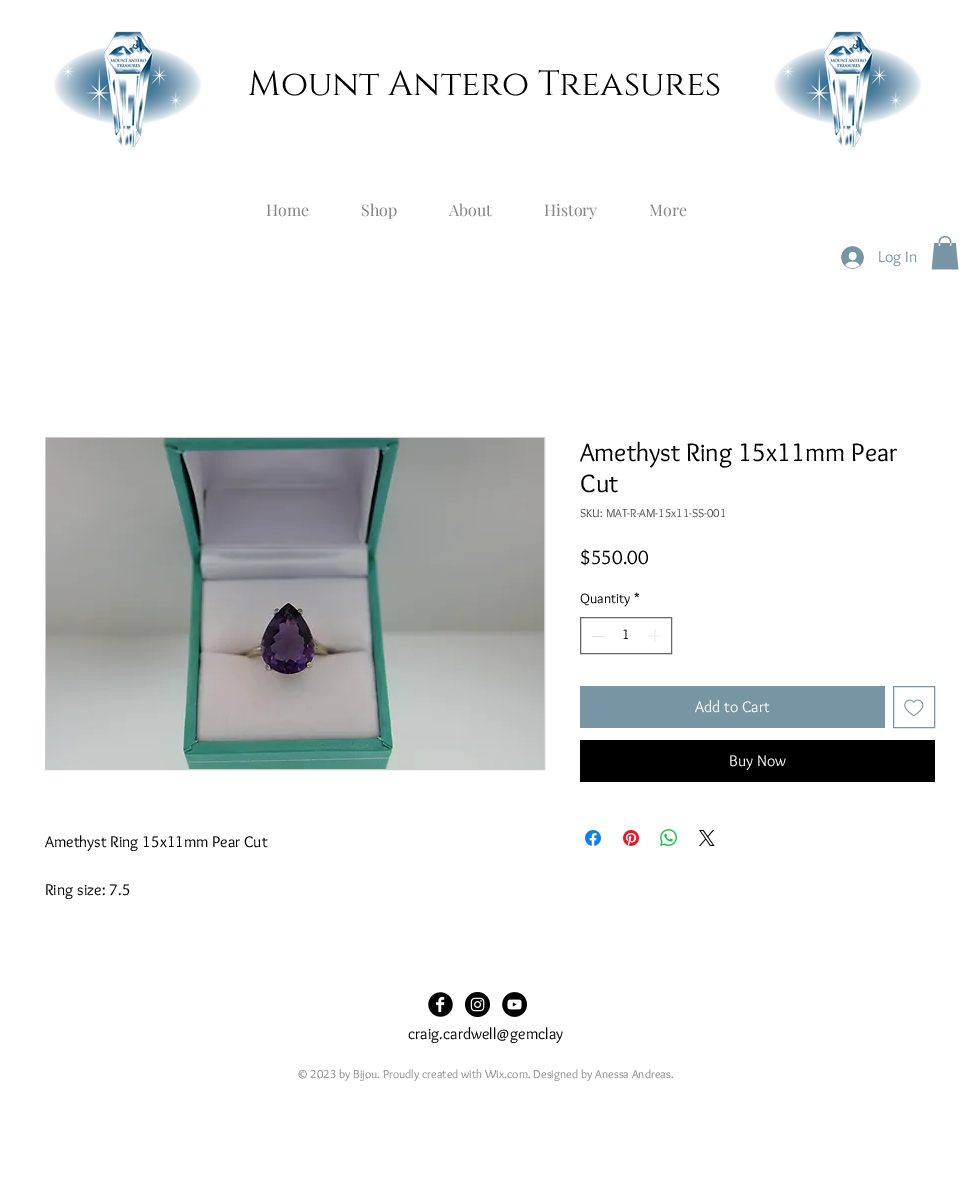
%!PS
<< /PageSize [972 1203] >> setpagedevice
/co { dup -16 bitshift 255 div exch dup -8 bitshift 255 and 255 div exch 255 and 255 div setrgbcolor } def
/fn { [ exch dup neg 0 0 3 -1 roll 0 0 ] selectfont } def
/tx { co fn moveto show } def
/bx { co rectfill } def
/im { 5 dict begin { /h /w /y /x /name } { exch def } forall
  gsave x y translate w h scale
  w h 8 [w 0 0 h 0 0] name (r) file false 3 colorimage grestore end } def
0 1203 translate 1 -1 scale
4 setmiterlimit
0 0 972 1203 16#FFFFFF bx
(media/1.raw) 54 31 148 117 im
(media/1.raw) 774 31 148 117 im
(media/2.raw) 841 246 23 23 im
(media/3.raw) 931 236 28 34 im
16#666666 co
580.5 617.5 91 36 rectstroke
592 636 13 1 16#E3E3E3 bx
(media/4.raw) 648 629 14 14 im
580 686 305 42 16#7795A3 bx
893.5 686.5 41 41 rectstroke
(media/5.raw) 904 699 20 17 im
580 740 355 42 16#000000 bx
(media/6.raw) 585 830 16 16 im
(media/7.raw) 623 830 16 16 im
(media/8.raw) 660 829 17 17 im
(media/9.raw) 699 830 16 16 im
16#CCCCCC co
45.5 437.5 499 332 rectstroke
(media/10.raw) 46 438 498 331 im
(media/11.raw) 428 992 25 25 im
(media/12.raw) 465 992 25 25 im
(media/13.raw) 502 992 25 25 im
(Mount Antero Treasures) 248 95 /Cinzel-Regular 35 16#000000 tx
(Home) 266 216 /PlayfairDisplay-Regular 16 16#858585 tx
(Shop) 361 216 /PlayfairDisplay-Regular 16 16#858585 tx
(About) 449 216 /PlayfairDisplay-Regular 16 16#858585 tx
(History) 544 216 /PlayfairDisplay-Regular 16 16#858585 tx
(More) 649 216 /PlayfairDisplay-Regular 16 16#858585 tx
(Log In) 878 262 /Overlock-Regular 16 16#7795A3 tx
(Amethyst Ring 15x11mm Pear) 580 461 /Overlock-Regular 26 16#000000 tx
(Cut) 580 492 /Overlock-Regular 26 16#000000 tx
(SKU: MAT-R-AM-15x11-SS-001) 580 517 /Overlock-Regular 12 16#504F4F tx
($550.00) 580 564 /Overlock-Regular 20 16#000000 tx
(Quantity) 580 603 /Overlock-Regular 14 16#000000 tx
(*) 634 603 /Overlock-Regular 14 16#000000 tx
(1) 622 639 /Overlock-Regular 14 16#000000 tx
(Add to Cart) 695 712 /Overlock-Regular 16 16#FFFFFF tx
(Buy Now) 729 766 /Overlock-Regular 16 16#FFFFFF tx
(Amethyst Ring 15x11mm Pear Cut) 45 847 /Overlock-Regular 16 16#000000 tx
(Ring size: 7.5) 45 895 /Overlock-Regular 16 16#000000 tx
(craig.cardwell@gemclay) 408 1039 /Overlock-Regular 16 16#000000 tx
(© 2023 by Bijou. Proudly created with Wix.com. Designed by Anessa Andreas.) 297 1078 /Overlock-Regular 12 16#8B8A8A tx
showpage
